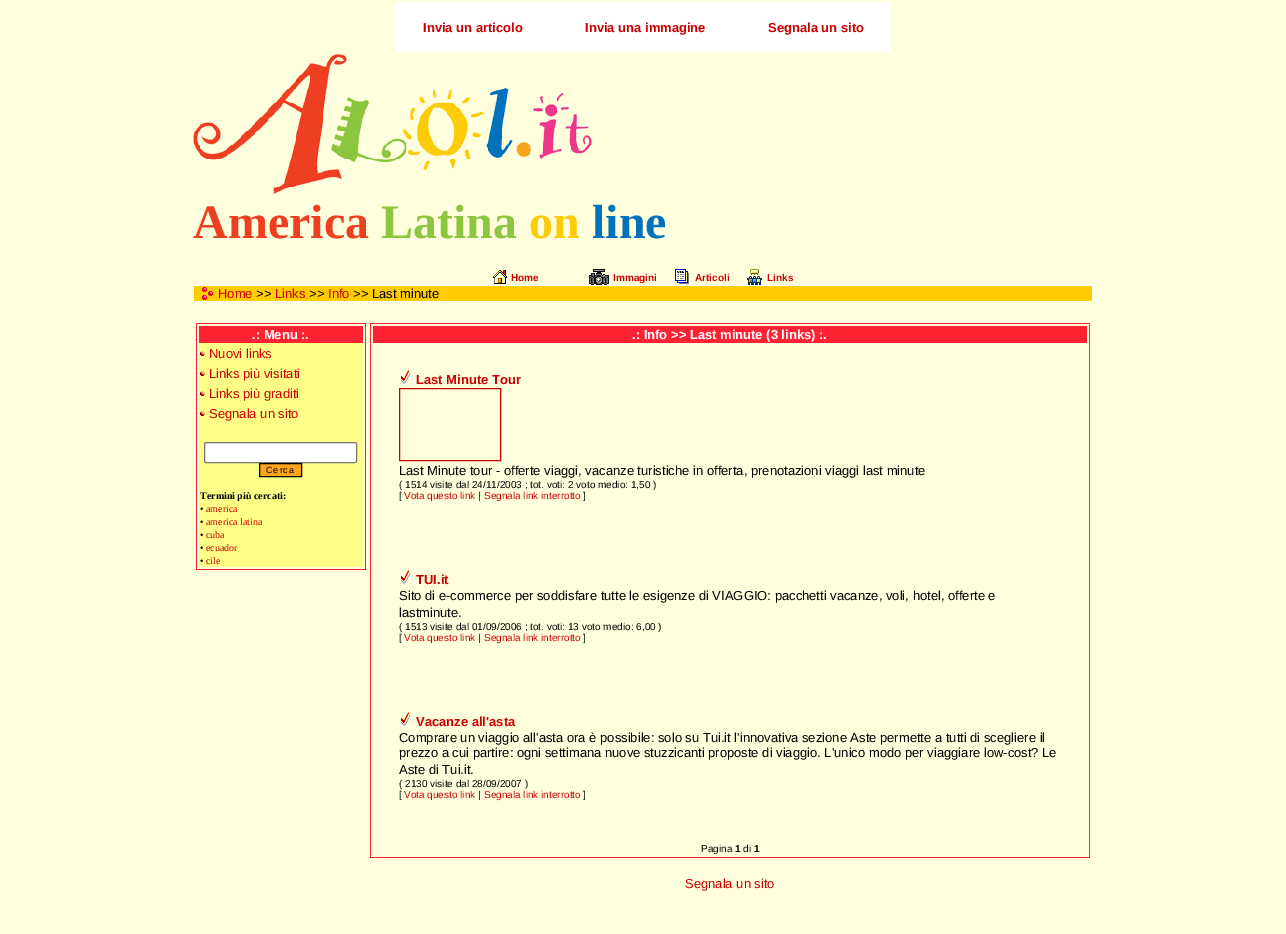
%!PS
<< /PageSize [1286 934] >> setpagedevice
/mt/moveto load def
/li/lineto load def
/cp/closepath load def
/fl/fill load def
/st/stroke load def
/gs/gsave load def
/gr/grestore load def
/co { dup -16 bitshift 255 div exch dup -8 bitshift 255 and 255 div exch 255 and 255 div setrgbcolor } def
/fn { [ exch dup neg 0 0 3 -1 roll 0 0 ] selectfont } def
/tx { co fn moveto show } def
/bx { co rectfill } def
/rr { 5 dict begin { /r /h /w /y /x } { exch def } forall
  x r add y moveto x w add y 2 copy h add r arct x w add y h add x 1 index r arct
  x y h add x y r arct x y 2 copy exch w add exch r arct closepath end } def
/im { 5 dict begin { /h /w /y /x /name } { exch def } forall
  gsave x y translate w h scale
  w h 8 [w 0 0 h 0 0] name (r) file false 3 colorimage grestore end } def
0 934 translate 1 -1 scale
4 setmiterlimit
0 0 1286 934 16#FFFFDD bx
395 2 496 50 16#FFFFFF bx
(media/1.raw) 193 54 399 140 im
(media/2.raw) 493 270 14 14 im
(media/3.raw) 589 269 20 16 im
(media/4.raw) 675 269 14 15 im
(media/5.raw) 747 269 15 16 im
194 286 898 15 16#FFCC00 bx
193 285 900 1 16#FFFFFF bx
1092 285 1 17 16#FFFFFF bx
193 301 900 1 16#FFFFFF bx
193 285 1 17 16#FFFFFF bx
(media/6.raw) 202 287 11 13 im
196 323 170 1 16#FF2233 bx
365 323 1 247 16#FF2233 bx
196 569 170 1 16#FF2233 bx
196 323 1 247 16#FF2233 bx
199 326 164 17 16#FF2233 bx
199 343 164 224 16#FFFF88 bx
(media/7.raw) 200 351 5 5 im
(media/7.raw) 200 371 5 5 im
(media/7.raw) 200 391 5 5 im
(media/7.raw) 200 411 5 5 im
16#FFFFFF co
204.5 442.5 152 20 1.5 rr gs fl gr
16#767676 co
st
16#FFA51D co
259.5 463.5 mt 301.5 463.5 li 301.5 476.5 li 259.5 476.5 li cp gs fl gr
16#000000 co
st
370 323 720 1 16#FF2233 bx
1089 323 1 535 16#FF2233 bx
370 857 720 1 16#FF2233 bx
370 323 1 535 16#FF2233 bx
373 326 714 17 16#FF2233 bx
(media/8.raw) 401 370 9 14 im
16#CC0000 co
399.5 388.5 101 72 rectstroke
(media/8.raw) 401 570 9 14 im
(media/8.raw) 401 712 9 14 im
(Invia un articolo) 423 32 /LiberationSans-Bold 13 16#CC0000 tx
(Invia una immagine) 585 32 /LiberationSans-Bold 13 16#CC0000 tx
(Segnala un sito) 768 32 /LiberationSans-Bold 13 16#CC0000 tx
(America) 193 238 /LiberationSerif-Bold 48 16#EF3F22 tx
(Latina) 381 238 /LiberationSerif-Bold 48 16#8CC63E tx
(on) 529 238 /LiberationSerif-Bold 48 16#FECB09 tx
(line) 592 238 /LiberationSerif-Bold 48 16#0072BC tx
(Home) 511 281 /LiberationSans-Bold 10 16#CC0000 tx
(Immagini) 613 281 /LiberationSans-Bold 10 16#CC0000 tx
(Articoli) 695 281 /LiberationSans-Bold 10 16#CC0000 tx
(Links) 767 281 /LiberationSans-Bold 10 16#CC0000 tx
(Home) 218 298 /LiberationSans-Regular 13 16#CC0000 tx
(>>) 256 298 /LiberationSans-Regular 13 16#000000 tx
(Links) 275 298 /LiberationSans-Regular 13 16#CC0000 tx
(>>) 309 298 /LiberationSans-Regular 13 16#000000 tx
(Info) 328 298 /LiberationSans-Regular 13 16#CC0000 tx
(>> Last minute) 353 298 /LiberationSans-Regular 13 16#000000 tx
(.: Menu :.) 252 339 /LiberationSans-Bold 13 16#FFFFFF tx
(Nuovi links) 209 358 /LiberationSans-Regular 13 16#CC0000 tx
(Links più visitati) 209 378 /LiberationSans-Regular 13 16#CC0000 tx
(Links più graditi) 209 398 /LiberationSans-Regular 13 16#CC0000 tx
(Segnala un sito) 209 418 /LiberationSans-Regular 13 16#CC0000 tx
/LiberationSans-Regular 9 fn
16#000000 co
266 473 mt 1 0 (Cerca) ashow
(Termini più cercati:) 200 499 /LiberationSerif-Bold 10 16#000000 tx
(•) 200 512 /LiberationSerif-Regular 10 16#000000 tx
(america) 206 512 /LiberationSerif-Regular 10 16#CC0000 tx
(•) 200 525 /LiberationSerif-Regular 10 16#000000 tx
(america latina) 206 525 /LiberationSerif-Regular 10 16#CC0000 tx
(•) 200 538 /LiberationSerif-Regular 10 16#000000 tx
(cuba) 206 538 /LiberationSerif-Regular 10 16#CC0000 tx
(•) 200 551 /LiberationSerif-Regular 10 16#000000 tx
(ecuador) 206 551 /LiberationSerif-Regular 10 16#CC0000 tx
(•) 200 564 /LiberationSerif-Regular 10 16#000000 tx
(cile) 206 564 /LiberationSerif-Regular 10 16#CC0000 tx
(.: Info >> Last minute \(3 links\) :.) 632 339 /LiberationSans-Bold 13 16#FFFFFF tx
(Last Minute Tour) 416 384 /LiberationSans-Bold 13 16#CC0000 tx
(Last Minute tour - offerte viaggi, vacanze turistiche in offerta, prenotazioni viaggi last minute) 399 475 /LiberationSans-Regular 13 16#000000 tx
(\( 1514 visite dal 24/11/2003 ; tot. voti: 2 voto medio: 1,50 \)) 399 488 /LiberationSans-Regular 10 16#000000 tx
([) 399 499 /LiberationSans-Regular 10 16#000000 tx
(Vota questo link) 404 499 /LiberationSans-Regular 10 16#CC0000 tx
(|) 478 499 /LiberationSans-Regular 10 16#000000 tx
(Segnala link interrotto) 484 499 /LiberationSans-Regular 10 16#CC0000 tx
(]) 583 499 /LiberationSans-Regular 10 16#000000 tx
(TUI.it) 416 584 /LiberationSans-Bold 13 16#CC0000 tx
(Sito di e-commerce per soddisfare tutte le esigenze di VIAGGIO: pacchetti vacanze, voli, hotel, offerte e) 399 600 /LiberationSans-Regular 13 16#000000 tx
(lastminute.) 399 617 /LiberationSans-Regular 13 16#000000 tx
(\( 1513 visite dal 01/09/2006 ; tot. voti: 13 voto medio: 6,00 \)) 399 630 /LiberationSans-Regular 10 16#000000 tx
([) 399 641 /LiberationSans-Regular 10 16#000000 tx
(Vota questo link) 404 641 /LiberationSans-Regular 10 16#CC0000 tx
(|) 478 641 /LiberationSans-Regular 10 16#000000 tx
(Segnala link interrotto) 484 641 /LiberationSans-Regular 10 16#CC0000 tx
(]) 583 641 /LiberationSans-Regular 10 16#000000 tx
(Vacanze all'asta) 416 726 /LiberationSans-Bold 13 16#CC0000 tx
(Comprare un viaggio all'asta ora è possibile: solo su Tui.it l'innovativa sezione Aste permette a tutti di scegliere il) 399 742 /LiberationSans-Regular 13 16#000000 tx
(prezzo a cui partire: ogni settimana nuove stuzzicanti proposte di viaggio. L'unico modo per viaggiare low-cost? Le) 399 757 /LiberationSans-Regular 13 16#000000 tx
(Aste di Tui.it.) 399 774 /LiberationSans-Regular 13 16#000000 tx
(\( 2130 visite dal 28/09/2007 \)) 399 787 /LiberationSans-Regular 10 16#000000 tx
([) 399 798 /LiberationSans-Regular 10 16#000000 tx
(Vota questo link) 404 798 /LiberationSans-Regular 10 16#CC0000 tx
(|) 478 798 /LiberationSans-Regular 10 16#000000 tx
(Segnala link interrotto) 484 798 /LiberationSans-Regular 10 16#CC0000 tx
(]) 583 798 /LiberationSans-Regular 10 16#000000 tx
(Pagina) 701 852 /LiberationSans-Regular 10 16#000000 tx
(1) 735 852 /LiberationSans-Bold 10 16#000000 tx
(di) 743 852 /LiberationSans-Regular 10 16#000000 tx
(1) 754 852 /LiberationSans-Bold 10 16#000000 tx
(Segnala un sito) 685 888 /LiberationSans-Regular 13 16#CC0000 tx
showpage
